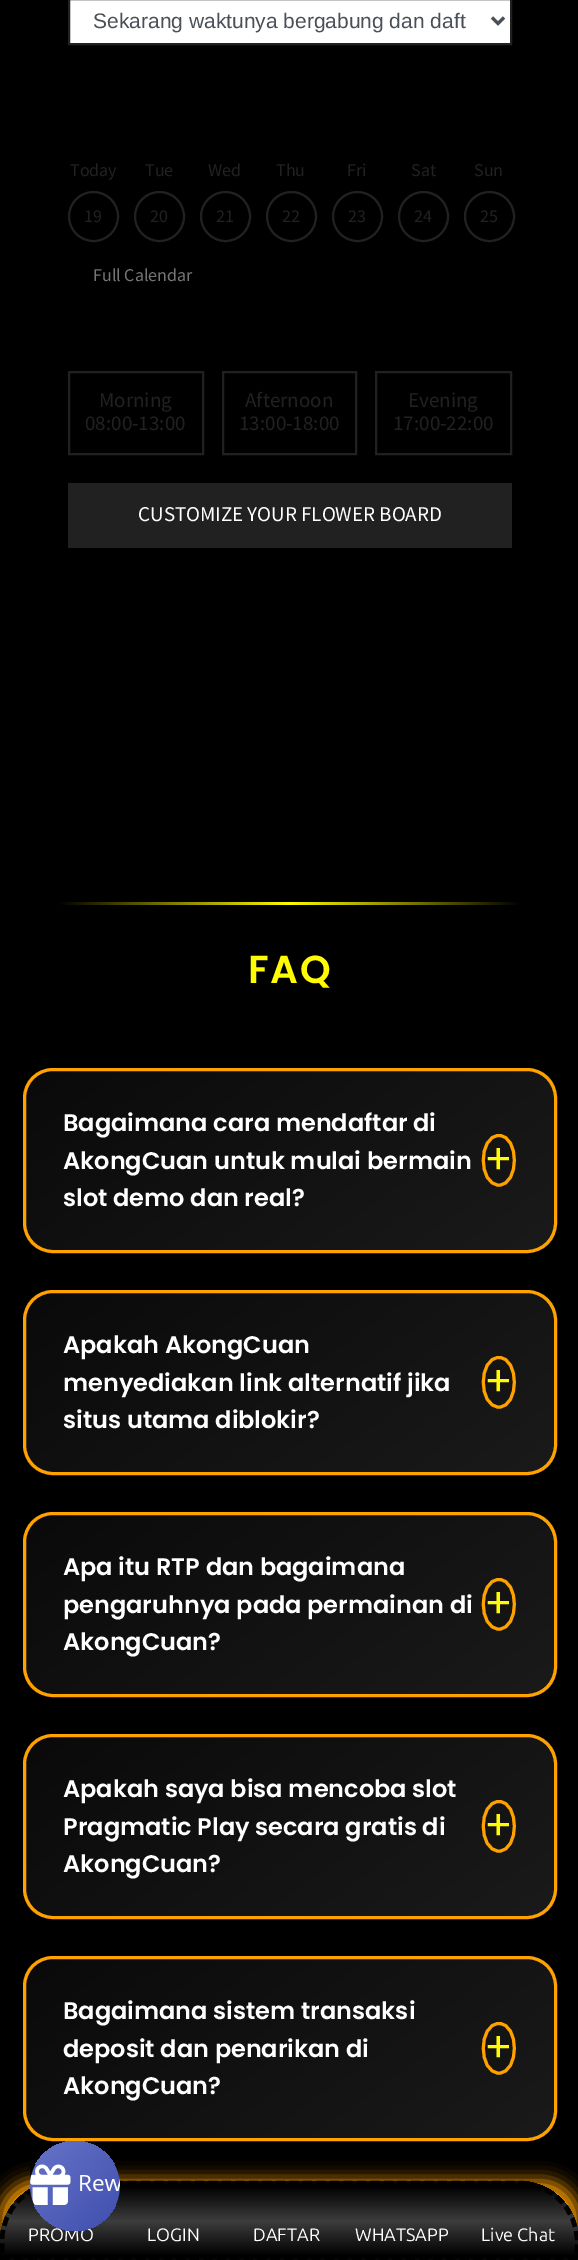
%!PS
<< /PageSize [578 2260] /PageUsesTransparency true >> setpagedevice
/mt/moveto load def
/li/lineto load def
/ct/curveto load def
/cp/closepath load def
/fl/fill load def
/st/stroke load def
/gs/gsave load def
/gr/grestore load def
/lw/setlinewidth load def
/co { dup -16 bitshift 255 div exch dup -8 bitshift 255 and 255 div exch 255 and 255 div setrgbcolor } def
/fn { [ exch dup neg 0 0 3 -1 roll 0 0 ] selectfont } def
/tx { co fn moveto show } def
/bx { co rectfill } def
/al { dup .setfillconstantalpha .setstrokeconstantalpha } def
/ci { newpath 0 360 arc closepath } def
/rr { 5 dict begin { /r /h /w /y /x } { exch def } forall
  x r add y moveto x w add y 2 copy h add r arct x w add y h add x 1 index r arct
  x y h add x y r arct x y 2 copy exch w add exch r arct closepath end } def
/sh { 12 dict begin { /a /b /q /h /w /y /x } { exch def } forall gsave /was 0 def
  9 -2 -9 { dup b mul 4 div /e exch def 1 sub .425 mul 2.718 exch exp 1 add a .99 .min exch div /now exch def
    1 1 now sub 1 was sub div sub al /was now def
    w h .min e 2 mul add 0 gt { x e sub y e sub w e 2 mul add h e 2 mul add
      q e add b .6 mul add w h .min 2 div e add .min 0 .max rr fill } if } for grestore end } def
/im { 5 dict begin { /h /w /y /x /name } { exch def } forall
  gsave x y translate w h scale
  w h 8 [w 0 0 h 0 0] name (r) file false 3 colorimage grestore end } def
0 .pushpdf14devicefilter
0 2260 translate 1 -1 scale
4 setmiterlimit
0 0 578 2260 16#000000 bx
16#FFFFFF co
69 -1 mt 511 -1 li 511 44 li 69 44 li cp gs fl gr
16#212121 co
2 lw
st
16#495057 co
3 lw
492 17.5 mt 498 23.5 li 504 17.5 li st
16#212121 co
2 lw
93.5 216.5 24.5 ci st
159.5 216.5 24.5 ci st
225.5 216.5 24.5 ci st
291.5 216.5 24.5 ci st
357.5 216.5 24.5 ci st
423.5 216.5 24.5 ci st
489.5 216.5 24.5 ci st
69 372 134 82 rectstroke
223 372 133 82 rectstroke
376 372 135 82 rectstroke
68 483 444 65 16#212121 bx
gs 59 902 mt 522 902 li 522 905 li 59 905 li cp clip newpath
<< /ShadingType 2 /ColorSpace /DeviceRGB /Coords [58 903 521 903] /Extend [true true] /Function << /FunctionType 3 /Domain [0 1] /Functions [<< /FunctionType 2 /Domain [0 1] /C0 [0 0 0] /C1 [1 .984 0] /N 1 >> << /FunctionType 2 /Domain [0 1] /C0 [1 .984 0] /C1 [0 0 0] /N 1 >>] /Bounds [.5] /Encode [0 1 0 1] >> >> shfill gr
gs
23 1068 534 185 30 rr clip newpath
gs 26 1071 mt 554 1071 li 554 1250 li 26 1250 li cp clip newpath
<< /ShadingType 2 /ColorSpace /DeviceRGB /Coords [161 976 418 1344] /Extend [true true] /Function << /FunctionType 2 /Domain [0 1] /C0 [.039 .039 .039] /C1 [.102 .102 .102] /N 1 >> >> shfill gr
gr
16#FFA200 co
3 lw
24.5 1069.5 531 182 28.5 rr st
16#141414 co
499 1134 mt 508.5 1134 516 1145.5 516 1160 ct 516 1174.5 508.5 1186 499 1186 ct 489.5 1186 482 1174.5 482 1160 ct 482 1145.5 489.5 1134 499 1134 ct cp fl
16#FFA200 co
499 1135.5 mt 519.5 1135.5 519.5 1185 499 1185 ct 478 1185 478 1135.5 499 1135.5 ct cp st
gs
23 1290 534 185 30 rr clip newpath
gs 26 1293 mt 554 1293 li 554 1472 li 26 1472 li cp clip newpath
<< /ShadingType 2 /ColorSpace /DeviceRGB /Coords [161 1198 418 1566] /Extend [true true] /Function << /FunctionType 2 /Domain [0 1] /C0 [.039 .039 .039] /C1 [.102 .102 .102] /N 1 >> >> shfill gr
gr
24.5 1291.5 531 182 28.5 rr st
16#141414 co
499 1356 mt 508.5 1356 516 1367.5 516 1382 ct 516 1396.5 508.5 1408 499 1408 ct 489.5 1408 482 1396.5 482 1382 ct 482 1367.5 489.5 1356 499 1356 ct cp fl
16#FFA200 co
499 1357.5 mt 519.5 1357.5 519.5 1407 499 1407 ct 478 1407 478 1357.5 499 1357.5 ct cp st
gs
23 1512 534 185 30 rr clip newpath
gs 26 1515 mt 554 1515 li 554 1694 li 26 1694 li cp clip newpath
<< /ShadingType 2 /ColorSpace /DeviceRGB /Coords [161 1420 418 1788] /Extend [true true] /Function << /FunctionType 2 /Domain [0 1] /C0 [.039 .039 .039] /C1 [.102 .102 .102] /N 1 >> >> shfill gr
gr
24.5 1513.5 531 182 28.5 rr st
16#141414 co
499 1578 mt 508.5 1578 516 1589.5 516 1604 ct 516 1618.5 508.5 1630 499 1630 ct 489.5 1630 482 1618.5 482 1604 ct 482 1589.5 489.5 1578 499 1578 ct cp fl
16#FFA200 co
499 1579.5 mt 519.5 1579.5 519.5 1629 499 1629 ct 478 1629 478 1579.5 499 1579.5 ct cp st
gs
23 1734 534 185 30 rr clip newpath
gs 26 1737 mt 554 1737 li 554 1916 li 26 1916 li cp clip newpath
<< /ShadingType 2 /ColorSpace /DeviceRGB /Coords [161 1642 418 2010] /Extend [true true] /Function << /FunctionType 2 /Domain [0 1] /C0 [.039 .039 .039] /C1 [.102 .102 .102] /N 1 >> >> shfill gr
gr
24.5 1735.5 531 182 28.5 rr st
16#141414 co
499 1800 mt 508.5 1800 516 1811.5 516 1826 ct 516 1840.5 508.5 1852 499 1852 ct 489.5 1852 482 1840.5 482 1826 ct 482 1811.5 489.5 1800 499 1800 ct cp fl
16#FFA200 co
499 1801.5 mt 519.5 1801.5 519.5 1851 499 1851 ct 478 1851 478 1801.5 499 1801.5 ct cp st
gs
23 1956 534 185 30 rr clip newpath
gs 26 1959 mt 554 1959 li 554 2138 li 26 2138 li cp clip newpath
<< /ShadingType 2 /ColorSpace /DeviceRGB /Coords [161 1864 418 2232] /Extend [true true] /Function << /FunctionType 2 /Domain [0 1] /C0 [.039 .039 .039] /C1 [.102 .102 .102] /N 1 >> >> shfill gr
gr
24.5 1957.5 531 182 28.5 rr st
16#141414 co
499 2022 mt 508.5 2022 516 2033.5 516 2048 ct 516 2062.5 508.5 2074 499 2074 ct 489.5 2074 482 2062.5 482 2048 ct 482 2033.5 489.5 2022 499 2022 ct cp fl
16#FFA200 co
499 2023.5 mt 519.5 2023.5 519.5 2073 499 2073 ct 478 2073 478 2023.5 499 2023.5 ct cp st
0 2181 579 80 60 9 1 sh
gs
60 2181 mt 519 2181 li 552 2181 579 2208 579 2241 ct 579 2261 li 0 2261 li 0 2241 li 0 2208 27 2181 60 2181 ct cp clip newpath
gs 119 2181 mt 543 2181 li 543 2186 li 119 2186 li cp clip newpath
<< /ShadingType 2 /ColorSpace /DeviceRGB /Coords [290 2115 290 2186] /Extend [true true] /Function << /FunctionType 3 /Domain [0 1] /Functions [<< /FunctionType 2 /Domain [0 1] /C0 [0 0 0] /C1 [.239 .239 .239] /N 1 >> << /FunctionType 2 /Domain [0 1] /C0 [.239 .239 .239] /C1 [0 0 0] /N 1 >>] /Bounds [.5] /Encode [0 1 0 1] >> >> shfill gr
gs 0 2186 mt 578 2186 li 578 2256 li 0 2256 li cp clip newpath
<< /ShadingType 2 /ColorSpace /DeviceRGB /Coords [290 2186 290 2256] /Extend [true true] /Function << /FunctionType 3 /Domain [0 1] /Functions [<< /FunctionType 2 /Domain [0 1] /C0 [0 0 0] /C1 [.239 .239 .239] /N 1 >> << /FunctionType 2 /Domain [0 1] /C0 [.239 .239 .239] /C1 [0 0 0] /N 1 >>] /Bounds [.5] /Encode [0 1 0 1] >> >> shfill gr
gr
gs 0 2256 mt 578 2256 li 578 2260 li 0 2260 li cp clip newpath
<< /ShadingType 2 /ColorSpace /DeviceRGB /Coords [290 2256 290 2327] /Extend [true true] /Function << /FunctionType 3 /Domain [0 1] /Functions [<< /FunctionType 2 /Domain [0 1] /C0 [0 0 0] /C1 [.239 .239 .239] /N 1 >> << /FunctionType 2 /Domain [0 1] /C0 [.239 .239 .239] /C1 [0 0 0] /N 1 >>] /Bounds [.5] /Encode [0 1 0 1] >> >> shfill gr
16#000000 co
4.5 lw
[9 4.5] 0 setdash
60 2183 mt 519 2183 li 551 2183 577 2209 577 2241 ct 577 2258 li 2 2258 li 2 2241 li 2 2209 28 2183 60 2183 ct cp st
(Sekarang waktunya bergabung dan daft) 93 28 /LiberationSans-Regular 21 16#495057 tx
(Today) 70 176 /SourceSansPro-Regular 18 16#212121 tx
(19) 84 222 /SourceSansPro-Regular 18 16#212121 tx
(Tue) 145 176 /SourceSansPro-Regular 18 16#212121 tx
(20) 150 222 /SourceSansPro-Regular 18 16#212121 tx
(Wed) 208 176 /SourceSansPro-Regular 18 16#212121 tx
(21) 216 222 /SourceSansPro-Regular 18 16#212121 tx
(Thu) 276 176 /SourceSansPro-Regular 18 16#212121 tx
(22) 282 222 /SourceSansPro-Regular 18 16#212121 tx
(Fri) 347 176 /SourceSansPro-Regular 18 16#212121 tx
(23) 348 222 /SourceSansPro-Regular 18 16#212121 tx
(Sat) 411 176 /SourceSansPro-Regular 18 16#212121 tx
(24) 414 222 /SourceSansPro-Regular 18 16#212121 tx
(Sun) 474 176 /SourceSansPro-Regular 18 16#212121 tx
(25) 480 222 /SourceSansPro-Regular 18 16#212121 tx
(Full Calendar) 93 281 /SourceSansPro-Regular 18 16#757575 tx
(Morning) 99 407 /SourceSansPro-Regular 21 16#212121 tx
(08:00-13:00) 85 430 /SourceSansPro-Regular 21 16#212121 tx
(Afternoon) 245 407 /SourceSansPro-Regular 21 16#212121 tx
(13:00-18:00) 239 430 /SourceSansPro-Regular 21 16#212121 tx
(Evening) 408 407 /SourceSansPro-Regular 21 16#212121 tx
(17:00-22:00) 393 430 /SourceSansPro-Regular 21 16#212121 tx
(CUSTOMIZE YOUR FLOWER BOARD) 138 521 /SourceSansPro-Regular 21 16#FFFFFF tx
/Poppins-SemiBold 39 fn
16#FFFB00 co
248 983 mt 1.5 0 (FAQ) ashow
(Bagaimana cara mendaftar di) 63 1131 /Poppins-SemiBold 24 16#FFFFFF tx
(AkongCuan untuk mulai bermain) 63 1169 /Poppins-SemiBold 24 16#FFFFFF tx
(+) 484 1174 /Poppins-Regular 42 16#FFFB00 tx
(slot demo dan real?) 63 1206 /Poppins-SemiBold 24 16#FFFFFF tx
(Apakah AkongCuan) 63 1353 /Poppins-SemiBold 24 16#FFFFFF tx
(menyediakan link alternatif jika) 63 1391 /Poppins-SemiBold 24 16#FFFFFF tx
(+) 484 1396 /Poppins-Regular 42 16#FFFB00 tx
(situs utama diblokir?) 63 1428 /Poppins-SemiBold 24 16#FFFFFF tx
(Apa itu RTP dan bagaimana) 63 1575 /Poppins-SemiBold 24 16#FFFFFF tx
(pengaruhnya pada permainan di) 63 1613 /Poppins-SemiBold 24 16#FFFFFF tx
(+) 484 1618 /Poppins-Regular 42 16#FFFB00 tx
(AkongCuan?) 63 1650 /Poppins-SemiBold 24 16#FFFFFF tx
(Apakah saya bisa mencoba slot) 63 1797 /Poppins-SemiBold 24 16#FFFFFF tx
(Pragmatic Play secara gratis di) 63 1835 /Poppins-SemiBold 24 16#FFFFFF tx
(+) 484 1840 /Poppins-Regular 42 16#FFFB00 tx
(AkongCuan?) 63 1872 /Poppins-SemiBold 24 16#FFFFFF tx
(Bagaimana sistem transaksi) 63 2019 /Poppins-SemiBold 24 16#FFFFFF tx
(deposit dan penarikan di) 63 2057 /Poppins-SemiBold 24 16#FFFFFF tx
(+) 484 2062 /Poppins-Regular 42 16#FFFB00 tx
(AkongCuan?) 63 2094 /Poppins-SemiBold 24 16#FFFFFF tx
(PROMO) 28 2241 /Ubuntu-Regular 18 16#FFFFFF tx
gs 75 2186 45 ci clip newpath
<< /ShadingType 2 /ColorSpace /DeviceRGB /Coords [30 2141 120 2231] /Extend [true true] /Function << /FunctionType 2 /Domain [0 1] /C0 [.404 .455 .784] /C1 [.247 .306 .682] /N 1 >> >> shfill gr
(media/1.raw) 30 2164 90 41 im
(LOGIN) 147 2241 /Ubuntu-Regular 18 16#FFFFFF tx
(DAFTAR) 253 2241 /Ubuntu-Regular 18 16#FFFFFF tx
(WHATSAPP) 355 2241 /Ubuntu-Regular 18 16#FFFFFF tx
(Live Chat) 481 2241 /Ubuntu-Regular 18 16#FFFFFF tx
.poppdf14devicefilter showpage
